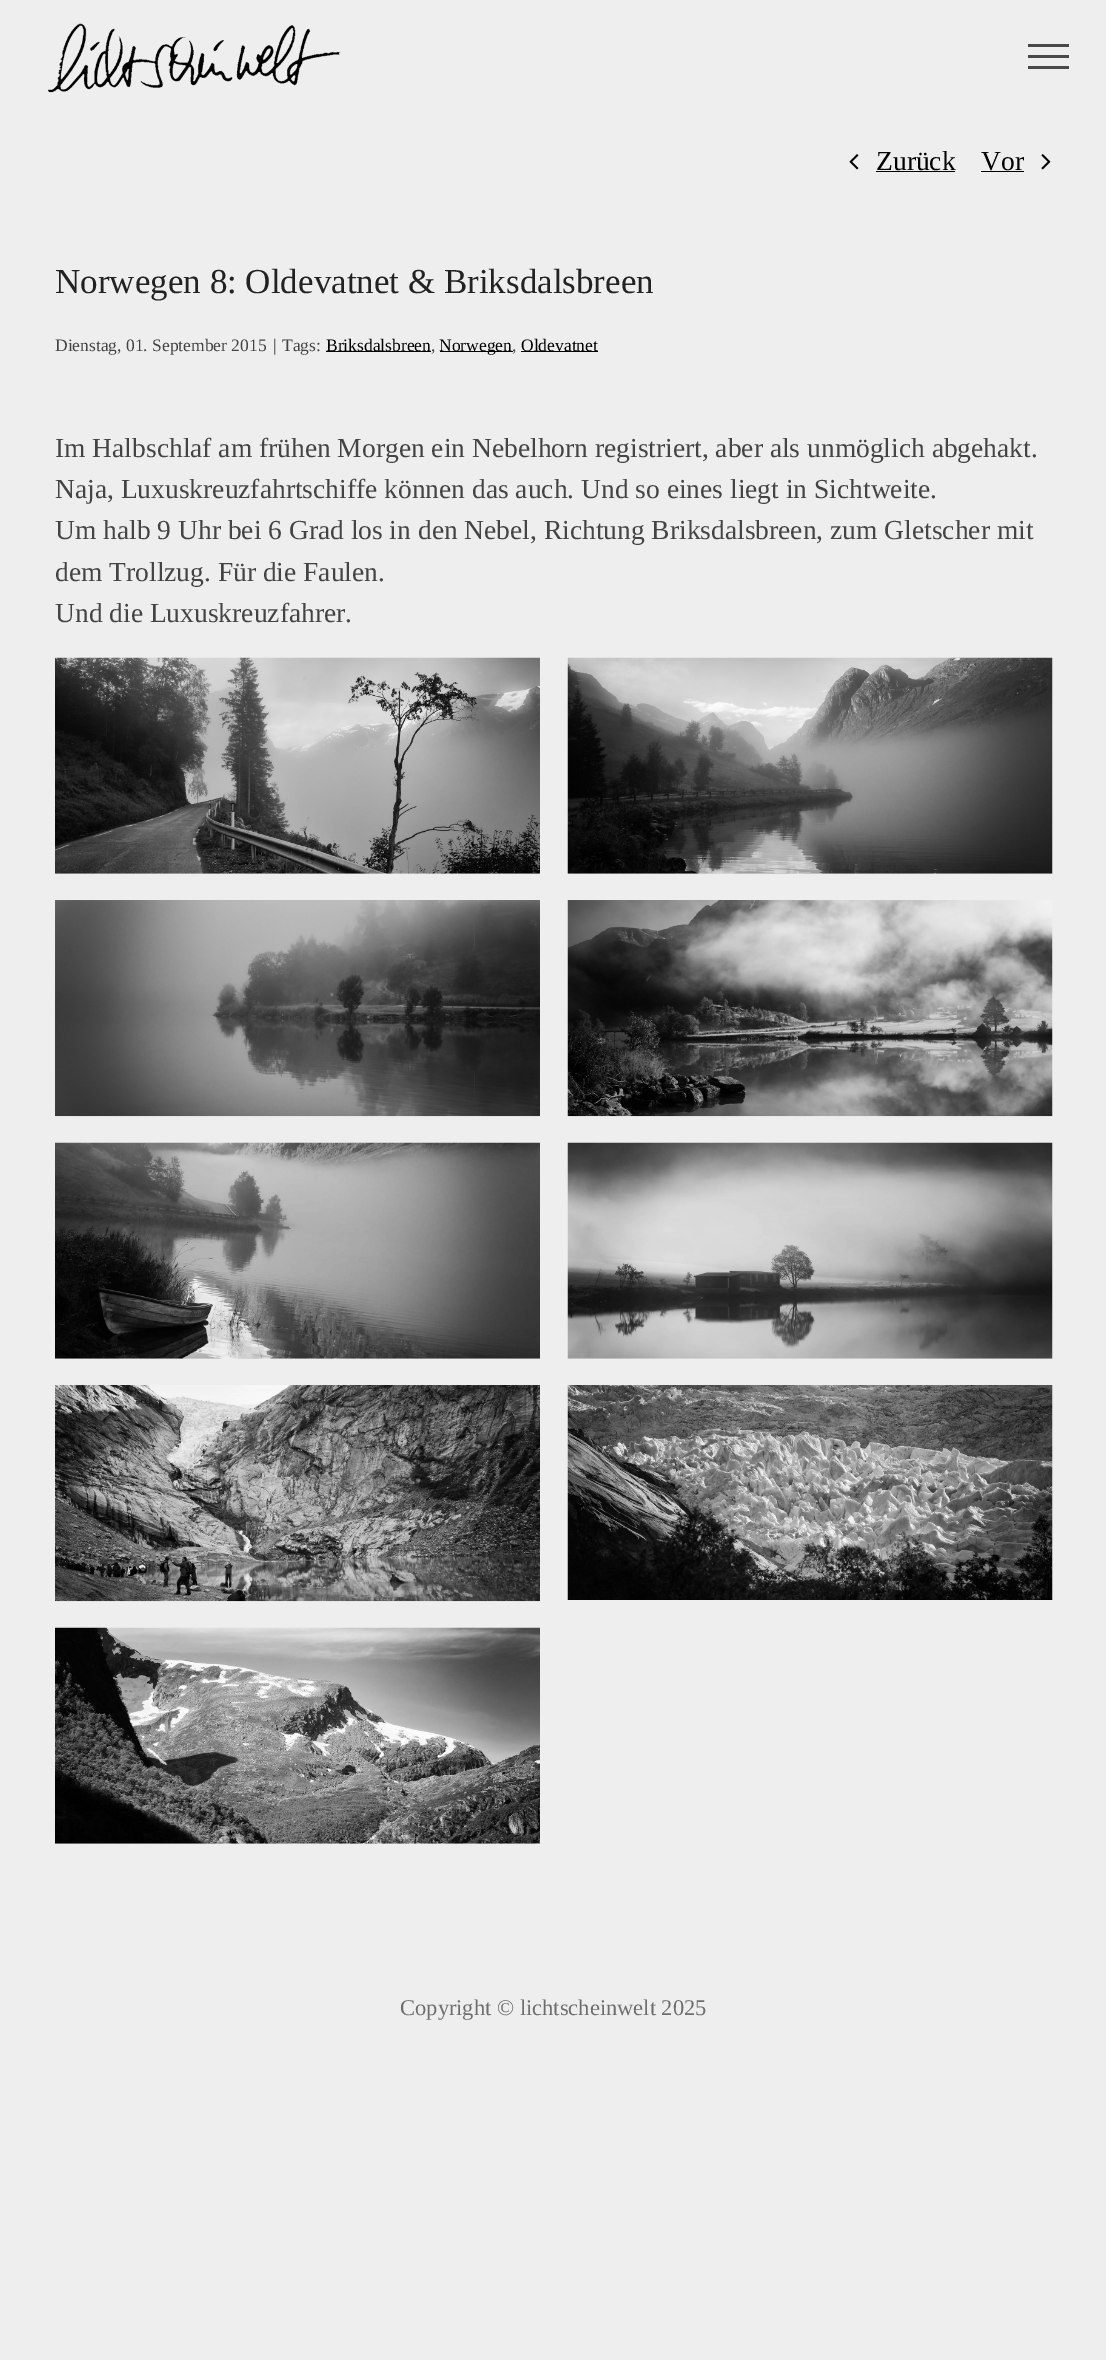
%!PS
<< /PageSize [1106 2360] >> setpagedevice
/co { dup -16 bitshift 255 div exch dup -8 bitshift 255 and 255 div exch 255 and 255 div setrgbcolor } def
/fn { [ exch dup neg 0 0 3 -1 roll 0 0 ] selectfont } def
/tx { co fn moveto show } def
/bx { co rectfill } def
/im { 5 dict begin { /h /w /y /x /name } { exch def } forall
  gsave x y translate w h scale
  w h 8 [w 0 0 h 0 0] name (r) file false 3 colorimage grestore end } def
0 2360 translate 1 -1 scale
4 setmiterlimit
0 0 1106 2360 16#EEEEEE bx
(media/1.raw) 48 23 293 70 im
1028 44 41 3 16#494949 bx
1028 55 41 3 16#494949 bx
1028 66 41 3 16#494949 bx
(media/2.raw) 849 154 10 16 im
876 171 79 1 16#000000 bx
981 171 43 1 16#000000 bx
(media/3.raw) 1041 154 10 16 im
326 351 105 1 16#000000 bx
440 351 73 1 16#000000 bx
521 351 77 1 16#000000 bx
(media/4.raw) 55 657 485 217 im
(media/5.raw) 567 657 486 217 im
(media/6.raw) 55 900 485 217 im
(media/7.raw) 567 900 486 217 im
(media/8.raw) 55 1142 485 217 im
(media/9.raw) 567 1142 486 217 im
(media/10.raw) 55 1385 485 217 im
(media/11.raw) 567 1385 486 215 im
(media/12.raw) 55 1627 485 217 im
(Zurück) 876 170 /LiberationSerif-Regular 27.5 16#000000 tx
(Vor) 981 170 /LiberationSerif-Regular 27.5 16#000000 tx
(Norwegen 8: Oldevatnet & Briksdalsbreen) 55 293 /LiberationSerif-Regular 35 16#222222 tx
(Dienstag, 01. September 2015) 55 351 /LiberationSerif-Regular 17.5 16#444444 tx
(|) 273 351 /LiberationSerif-Regular 17.5 16#444444 tx
(Tags:) 282 351 /LiberationSerif-Regular 17.5 16#444444 tx
(Briksdalsbreen) 326 351 /LiberationSerif-Regular 17.5 16#000000 tx
(,) 431 351 /LiberationSerif-Regular 17.5 16#444444 tx
(Norwegen) 439 351 /LiberationSerif-Regular 17.5 16#000000 tx
(,) 512 351 /LiberationSerif-Regular 17.5 16#444444 tx
(Oldevatnet) 521 351 /LiberationSerif-Regular 17.5 16#000000 tx
(Im Halbschlaf am frühen Morgen ein Nebelhorn registriert, aber als unmöglich abgehakt.) 55 457 /LiberationSerif-Regular 27.5 16#444444 tx
(Naja, Luxuskreuzfahrtschiffe können das auch. Und so eines liegt in Sichtweite.) 55 498 /LiberationSerif-Regular 27.5 16#444444 tx
(Um halb 9 Uhr bei 6 Grad los in den Nebel, Richtung Briksdalsbreen, zum Gletscher mit) 55 539 /LiberationSerif-Regular 27.5 16#444444 tx
(dem Trollzug. Für die Faulen.) 55 581 /LiberationSerif-Regular 27.5 16#444444 tx
(Und die Luxuskreuzfahrer.) 55 622 /LiberationSerif-Regular 27.5 16#444444 tx
(Copyright © lichtscheinwelt 2025) 400 2015 /LiberationSerif-Regular 22.5 16#6E6E6E tx
showpage
